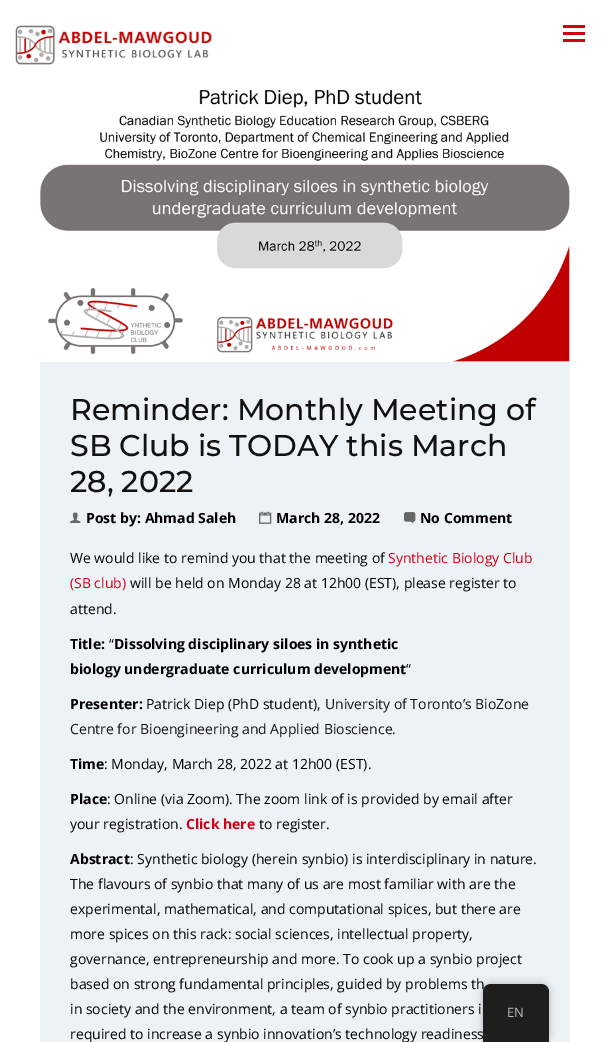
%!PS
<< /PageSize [610 1042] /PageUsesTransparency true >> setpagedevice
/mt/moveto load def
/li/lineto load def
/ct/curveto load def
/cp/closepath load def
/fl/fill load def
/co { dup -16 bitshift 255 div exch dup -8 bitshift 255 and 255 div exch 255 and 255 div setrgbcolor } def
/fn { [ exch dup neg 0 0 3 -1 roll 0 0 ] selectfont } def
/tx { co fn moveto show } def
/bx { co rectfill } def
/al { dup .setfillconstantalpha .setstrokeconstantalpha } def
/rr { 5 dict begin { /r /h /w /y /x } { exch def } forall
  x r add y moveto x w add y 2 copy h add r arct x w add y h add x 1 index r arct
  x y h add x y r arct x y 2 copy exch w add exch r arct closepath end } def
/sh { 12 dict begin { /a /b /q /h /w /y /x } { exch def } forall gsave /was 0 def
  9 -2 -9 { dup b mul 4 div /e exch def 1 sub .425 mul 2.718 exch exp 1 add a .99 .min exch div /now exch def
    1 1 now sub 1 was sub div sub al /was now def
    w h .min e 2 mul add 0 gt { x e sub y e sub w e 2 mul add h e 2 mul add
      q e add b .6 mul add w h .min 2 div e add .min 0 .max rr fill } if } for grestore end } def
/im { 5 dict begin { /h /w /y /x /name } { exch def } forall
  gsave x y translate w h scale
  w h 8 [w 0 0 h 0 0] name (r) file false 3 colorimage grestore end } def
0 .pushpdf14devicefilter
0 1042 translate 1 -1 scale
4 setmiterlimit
0 0 610 1042 16#FFFFFF bx
(media/1.raw) 15 25 197 40 im
563 25 22 3 16#D30015 bx
563 32 22 3 16#D30015 bx
563 39 22 3 16#D30015 bx
(media/2.raw) 40 90 530 272 im
40 362 530 680 16#EDF2F6 bx
(media/3.raw) 70 512 11 11 im
(media/4.raw) 259 511 13 13 im
(media/5.raw) 404 512 12 12 im
16#000000 co
483 984 66 58 8 4 .25 sh
(Reminder: Monthly Meeting of) 70 420 /Montserrat-Medium 30 16#111111 tx
(SB Club is TODAY this March) 70 456 /Montserrat-Medium 30 16#111111 tx
(28, 2022) 70 492 /Montserrat-Medium 30 16#111111 tx
(Post by: Ahmad Saleh) 86 523 /OpenSans-Bold 14 16#000000 tx
(March 28, 2022) 276 523 /OpenSans-Bold 14 16#000000 tx
(No Comment) 420 523 /OpenSans-Bold 14 16#000000 tx
(We would like to remind you that the meeting of) 70 563 /OpenSans-Regular 14 16#000000 tx
(Synthetic Biology Club) 388 563 /OpenSans-Regular 14 16#D30015 tx
(\(SB club\)) 70 588 /OpenSans-Regular 14 16#D30015 tx
(will be held on Monday 28 at 12h00 \(EST\), please register to) 130 588 /OpenSans-Regular 14 16#000000 tx
(attend.) 70 614 /OpenSans-Regular 14 16#000000 tx
(Title:) 70 649 /OpenSans-Bold 14 16#000000 tx
(“) 109 649 /OpenSans-Regular 14 16#000000 tx
(Dissolving disciplinary siloes in synthetic) 114 649 /OpenSans-Bold 14 16#000000 tx
(biology undergraduate curriculum development) 70 674 /OpenSans-Bold 14 16#000000 tx
(“) 406 674 /OpenSans-Regular 14 16#000000 tx
(Presenter:) 70 709 /OpenSans-Bold 14 16#000000 tx
(Patrick Diep \(PhD student\),) 146 709 /OpenSans-Regular 14 16#000000 tx
(University of Toronto’s BioZone) 325 709 /OpenSans-Regular 14 16#111111 tx
(Centre for Bioengineering and Applied Bioscience.) 70 734 /OpenSans-Regular 14 16#111111 tx
(Time) 70 769 /OpenSans-Bold 14 16#000000 tx
(: Monday, March 28, 2022 at 12h00 \(EST\).) 104 769 /OpenSans-Regular 14 16#000000 tx
(Place) 70 804 /OpenSans-Bold 14 16#000000 tx
(: Online \(via Zoom\). The zoom link of is provided by email after) 107 804 /OpenSans-Regular 14 16#000000 tx
(your registration.) 70 829 /OpenSans-Regular 14 16#000000 tx
(Click here) 186 829 /OpenSans-Bold 14 16#D30015 tx
(to register.) 259 829 /OpenSans-Regular 14 16#000000 tx
(Abstract) 70 864 /OpenSans-Bold 14 16#000000 tx
(: Synthetic biology \(herein synbio\) is interdisciplinary in nature.) 130 864 /OpenSans-Regular 14 16#000000 tx
(The flavours of synbio that many of us are most familiar with are the) 70 889 /OpenSans-Regular 14 16#000000 tx
(experimental, mathematical, and computational spices, but there are) 70 914 /OpenSans-Regular 14 16#000000 tx
(more spices on this rack: social sciences, intellectual property,) 70 939 /OpenSans-Regular 14 16#000000 tx
(governance, entrepreneurship and more. To cook up a synbio project) 70 964 /OpenSans-Regular 14 16#000000 tx
(based on strong fundamental principles, guided by problems th) 70 989 /OpenSans-Regular 14 16#000000 tx
(in society and the environment, a team of synbio practitioners i) 70 1014 /OpenSans-Regular 14 16#000000 tx
(required to increase a synbio innovation’s technology readiness) 70 1039 /OpenSans-Regular 14 16#000000 tx
16#1E1E1E co
491 984 mt 541 984 li 545.5 984 549 987.5 549 992 ct 549 1042 li 483 1042 li 483 992 li 483 987.5 486.5 984 491 984 ct cp fl
(EN) 507 1017 /OpenSans-Regular 13 16#BDBDBD tx
.poppdf14devicefilter showpage
